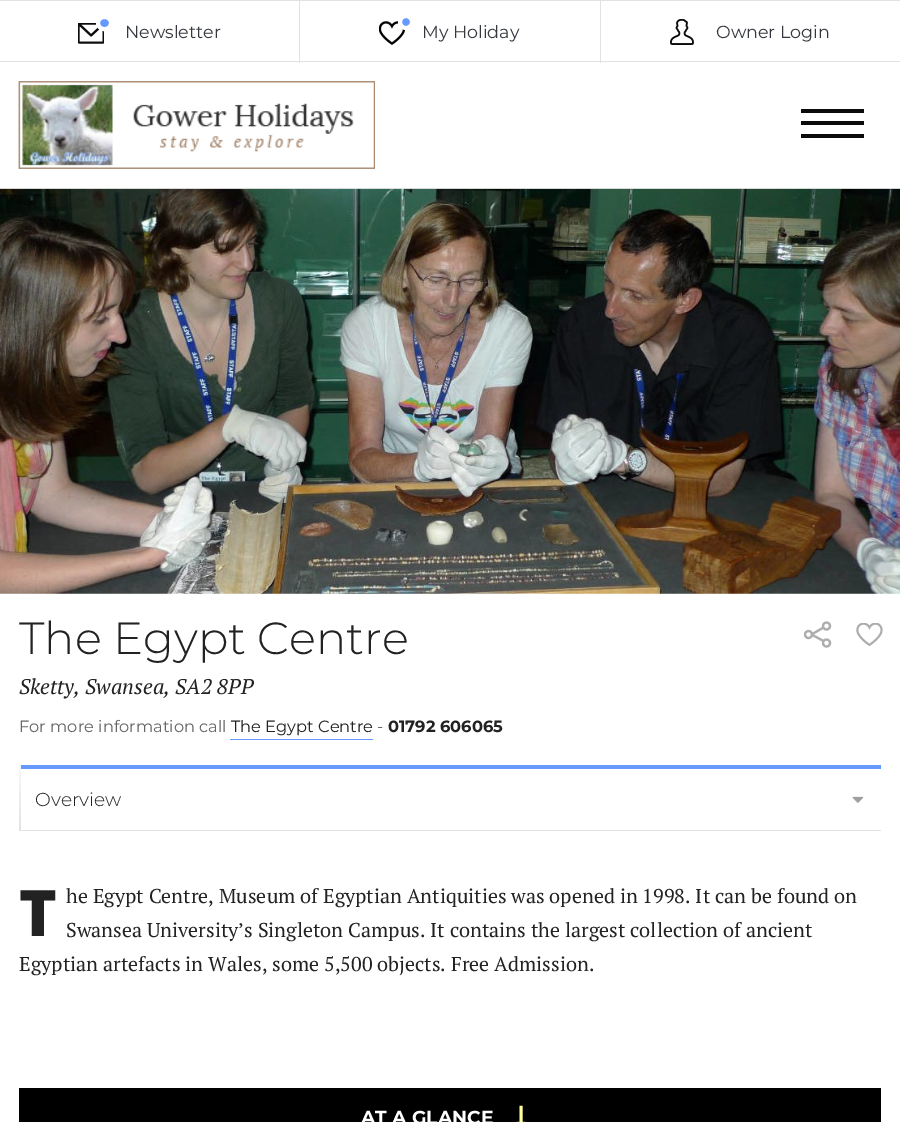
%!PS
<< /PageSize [900 1122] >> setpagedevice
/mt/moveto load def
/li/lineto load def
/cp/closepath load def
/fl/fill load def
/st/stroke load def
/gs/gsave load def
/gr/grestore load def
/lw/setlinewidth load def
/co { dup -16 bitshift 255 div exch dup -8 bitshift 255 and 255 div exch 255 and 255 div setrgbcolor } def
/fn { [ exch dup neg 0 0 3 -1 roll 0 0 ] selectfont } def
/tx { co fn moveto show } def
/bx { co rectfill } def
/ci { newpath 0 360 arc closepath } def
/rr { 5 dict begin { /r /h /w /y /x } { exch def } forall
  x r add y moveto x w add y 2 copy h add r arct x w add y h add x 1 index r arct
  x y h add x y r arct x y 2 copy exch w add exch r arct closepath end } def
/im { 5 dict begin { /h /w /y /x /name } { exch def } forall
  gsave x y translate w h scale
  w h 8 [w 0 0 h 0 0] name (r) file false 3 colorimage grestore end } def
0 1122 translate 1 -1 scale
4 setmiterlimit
0 0 900 1122 16#FFFFFF bx
0 0 900 1 16#E2E2E2 bx
(media/1.raw) 78 23 26 21 im
16#6699FF co
98 17 13 12 6 rr gs fl gr
16#FFFFFF co
4 lw
st
0 61 900 1 16#E2E2E2 bx
299 1 1 62 16#E2E2E2 bx
(media/2.raw) 379 21 26 24 im
16#6699FF co
406 22 6 ci gs fl gr
16#FFFFFF co
st
600 1 1 62 16#E2E2E2 bx
(media/3.raw) 670 19 24 26 im
0 188 900 1 16#E2E2E2 bx
(media/4.raw) 18 81 357 88 im
(media/5.raw) 18 81 357 88 im
801 109 63 4 16#0B0B0B bx
801 121 63 4 16#0B0B0B bx
801 134 63 4 16#0B0B0B bx
(media/6.raw) 0 188 900 406 im
16#ADADAD co
2.1 lw
826.5 626 3.5 ci st
826.5 643 3.5 ci st
808.5 634.5 3.5 ci st
2 setlinejoin
823.5 627.5 mt 811.5 634.5 li 823.5 641 li st
(media/7.raw) 856 623 27 23 im
230 739 143 1 16#6699FF bx
19 765 862 4 16#6699FF bx
19 830 862 1 16#E2E2E2 bx
gs 19 764 mt 20 764 li 20 830 li 19 830 li cp clip newpath
<< /ShadingType 2 /ColorSpace /DeviceRGB /Coords [2.8 777 36 817] /Extend [true true] /Function << /FunctionType 2 /Domain [0 1] /C0 [.976 .976 .976] /C1 [.886 .886 .886] /N 1 >> >> shfill gr
gs 20 764 mt 21 764 li 21 830 li 20 830 li cp clip newpath
<< /ShadingType 2 /ColorSpace /DeviceRGB /Coords [4.1 777 37 817] /Extend [true true] /Function << /FunctionType 2 /Domain [0 1] /C0 [.976 .976 .976] /C1 [.886 .886 .886] /N 1 >> >> shfill gr
(media/8.raw) 852 796 12 7 im
19 1088 862 34 16#000000 bx
(media/9.raw) 516 1105 10 17 im
(Newsletter) 125 38 /Montserrat-Regular 17.5 16#35383E tx
(My Holiday) 422 38 /Montserrat-Regular 17.5 16#35383E tx
(Owner Login) 716 38 /Montserrat-Regular 17.5 16#35383E tx
(The Egypt Centre) 19 654 /Montserrat-Light 45 16#222222 tx
(Sketty, Swansea, SA2 8PP) 19 694 /PTSerif-Italic 21.25 16#222222 tx
(For more information call) 19 732 /Montserrat-Regular 16.25 16#666666 tx
(The Egypt Centre) 231 732 /Montserrat-Regular 16.25 16#222222 tx
(-) 377 732 /Montserrat-Regular 16.25 16#666666 tx
(01792 606065) 388 732 /Montserrat-Bold 16.25 16#222222 tx
(Overview) 35 806 /Montserrat-Light 18.75 16#222222 tx
(T) 19 936 /NotoSans-Black 64 16#222222 tx
(he Egypt Centre, Museum of Egyptian Antiquities was opened in 1998. It can be found on) 66 903 /PTSerif-Regular 20 16#222222 tx
(Swansea University’s Singleton Campus. It contains the largest collection of ancient) 66 937 /PTSerif-Regular 20 16#222222 tx
(Egyptian artefacts in Wales, some 5,500 objects. Free Admission.) 19 971 /PTSerif-Regular 20 16#222222 tx
(AT A GLANCE) 361 1124 /Montserrat-Bold 18.75 16#FFFFFF tx
showpage
